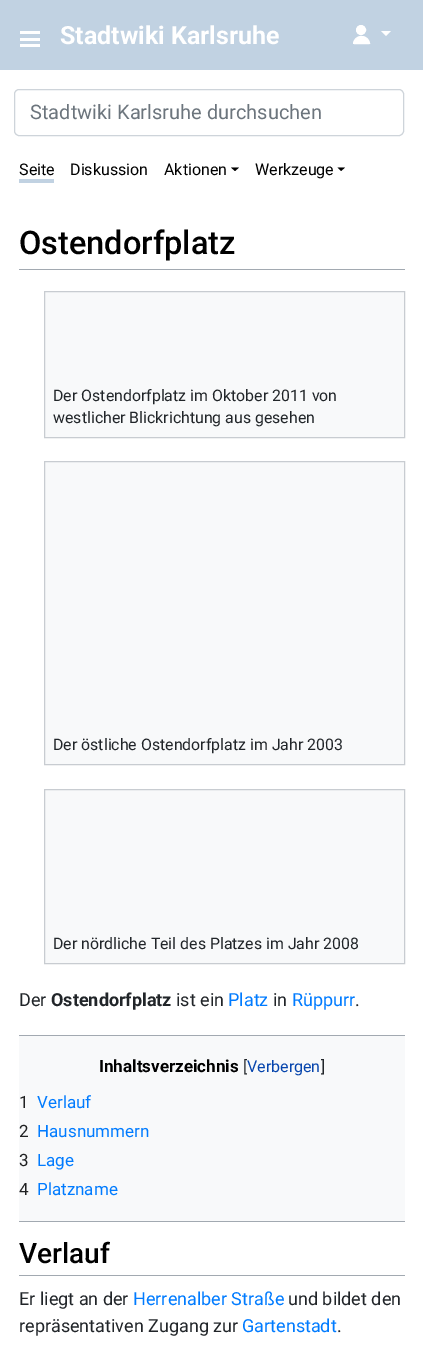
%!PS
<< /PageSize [423 1354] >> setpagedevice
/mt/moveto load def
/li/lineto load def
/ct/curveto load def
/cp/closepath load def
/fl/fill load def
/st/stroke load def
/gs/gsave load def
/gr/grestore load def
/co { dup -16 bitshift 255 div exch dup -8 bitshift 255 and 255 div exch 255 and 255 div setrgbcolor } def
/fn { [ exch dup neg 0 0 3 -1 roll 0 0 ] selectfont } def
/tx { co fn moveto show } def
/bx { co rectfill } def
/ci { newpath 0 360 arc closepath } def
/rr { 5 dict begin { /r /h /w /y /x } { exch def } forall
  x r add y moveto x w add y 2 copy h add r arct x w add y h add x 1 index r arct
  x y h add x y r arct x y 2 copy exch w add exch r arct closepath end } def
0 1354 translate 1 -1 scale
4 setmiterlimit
0 0 423 1354 16#FFFFFF bx
0 0 423 70 16#C1D2E2 bx
20 44 20 3 16#FFFFFF bx
20 31 20 3 16#FFFFFF bx
20 38 20 3 16#FFFFFF bx
361 36.5 mt 362 36.5 li 366 36.5 369.5 40 369.5 44 ct 369.5 43.5 li 353.5 43.5 li 353.5 44 li 353.5 40 357 36.5 361 36.5 ct cp gs fl gr
st
361 30 4.5 ci gs fl gr
st
381 31 mt 391 31 li 386 36 li cp fl
16#CED4DA co
14.5 89.5 389 46 4.5 rr st
19 179 35 4 16#C1D2E2 bx
16#000000 co
231 167.5 mt 239 167.5 li 235 171 li cp fl
337.5 167.5 mt 345 167.5 li 341 171 li cp fl
19 269 386 1 16#A2A9B1 bx
16#F8F9FA co
44.5 291.5 mt 404.5 291.5 li 404.5 437.5 li 44.5 437.5 li cp gs fl gr
16#C8CCD1 co
st
16#F8F9FA co
44.5 461.5 mt 404.5 461.5 li 404.5 764.5 li 44.5 764.5 li cp gs fl gr
16#C8CCD1 co
st
16#F8F9FA co
44.5 789.5 mt 404.5 789.5 li 404.5 963.5 li 44.5 963.5 li cp gs fl gr
16#C8CCD1 co
st
19 1036 386 185 16#F8F9FA bx
19 1035 386 1 16#A2A9B1 bx
19 1221 386 1 16#A2A9B1 bx
19 1275 386 1 16#A2A9B1 bx
(Stadtwiki Karlsruhe) 60 44 /Roboto-Bold 25 16#FFFFFF tx
(Stadtwiki Karlsruhe durchsuchen) 30 119 /Roboto-Regular 20 16#6C757D tx
(Seite) 19 175 /Roboto-Regular 16 16#000000 tx
(Diskussion) 70 175 /Roboto-Regular 16 16#000000 tx
(Aktionen) 164 175 /Roboto-Regular 16 16#000000 tx
(Werkzeuge) 255 175 /Roboto-Regular 16 16#000000 tx
(Ostendorfplatz) 19 254 /Roboto-Medium 32.5 16#000000 tx
(Der Ostendorfplatz im Oktober 2011 von) 53 401 /Roboto-Regular 15.9 16#212529 tx
(westlicher Blickrichtung aus gesehen) 53 423 /Roboto-Regular 15.9 16#212529 tx
(Der östliche Ostendorfplatz im Jahr 2003) 53 750 /Roboto-Regular 15.9 16#212529 tx
(Der nördliche Teil des Platzes im Jahr 2008) 53 949 /Roboto-Regular 15.9 16#212529 tx
(Der) 19 1006 /Roboto-Regular 18 16#212529 tx
(Ostendorfplatz) 51 1006 /Roboto-Bold 18 16#212529 tx
(ist ein) 176 1006 /Roboto-Regular 18 16#212529 tx
(Platz) 228 1006 /Roboto-Regular 18 16#007BFF tx
(in) 273 1006 /Roboto-Regular 18 16#212529 tx
(Rüppurr) 292 1006 /Roboto-Regular 18 16#007BFF tx
(.) 355 1006 /Roboto-Regular 18 16#212529 tx
(Inhaltsverzeichnis) 99 1072 /Roboto-Bold 17 16#000000 tx
([) 243 1072 /Roboto-Regular 16 16#212529 tx
(Verbergen) 247 1072 /Roboto-Regular 16 16#0645AD tx
(]) 321 1072 /Roboto-Regular 16 16#212529 tx
(1) 19 1108 /Roboto-Regular 17 16#202122 tx
(Verlauf) 37 1108 /Roboto-Regular 17 16#007BFF tx
(2) 19 1137 /Roboto-Regular 17 16#202122 tx
(Hausnummern) 37 1137 /Roboto-Regular 17 16#007BFF tx
(3) 19 1166 /Roboto-Regular 17 16#202122 tx
(Lage) 37 1166 /Roboto-Regular 17 16#007BFF tx
(4) 19 1195 /Roboto-Regular 17 16#202122 tx
(Platzname) 37 1195 /Roboto-Regular 17 16#007BFF tx
(Verlauf) 19 1263 /Roboto-Medium 28 16#000000 tx
(Er liegt an der) 19 1305 /Roboto-Regular 18 16#212529 tx
(Herrenalber Straße) 133 1305 /Roboto-Regular 18 16#007BFF tx
(und bildet den) 288 1305 /Roboto-Regular 18 16#212529 tx
(repräsentativen Zugang zur) 19 1332 /Roboto-Regular 18 16#212529 tx
(Gartenstadt) 242 1332 /Roboto-Regular 18 16#007BFF tx
(.) 337 1332 /Roboto-Regular 18 16#212529 tx
showpage
